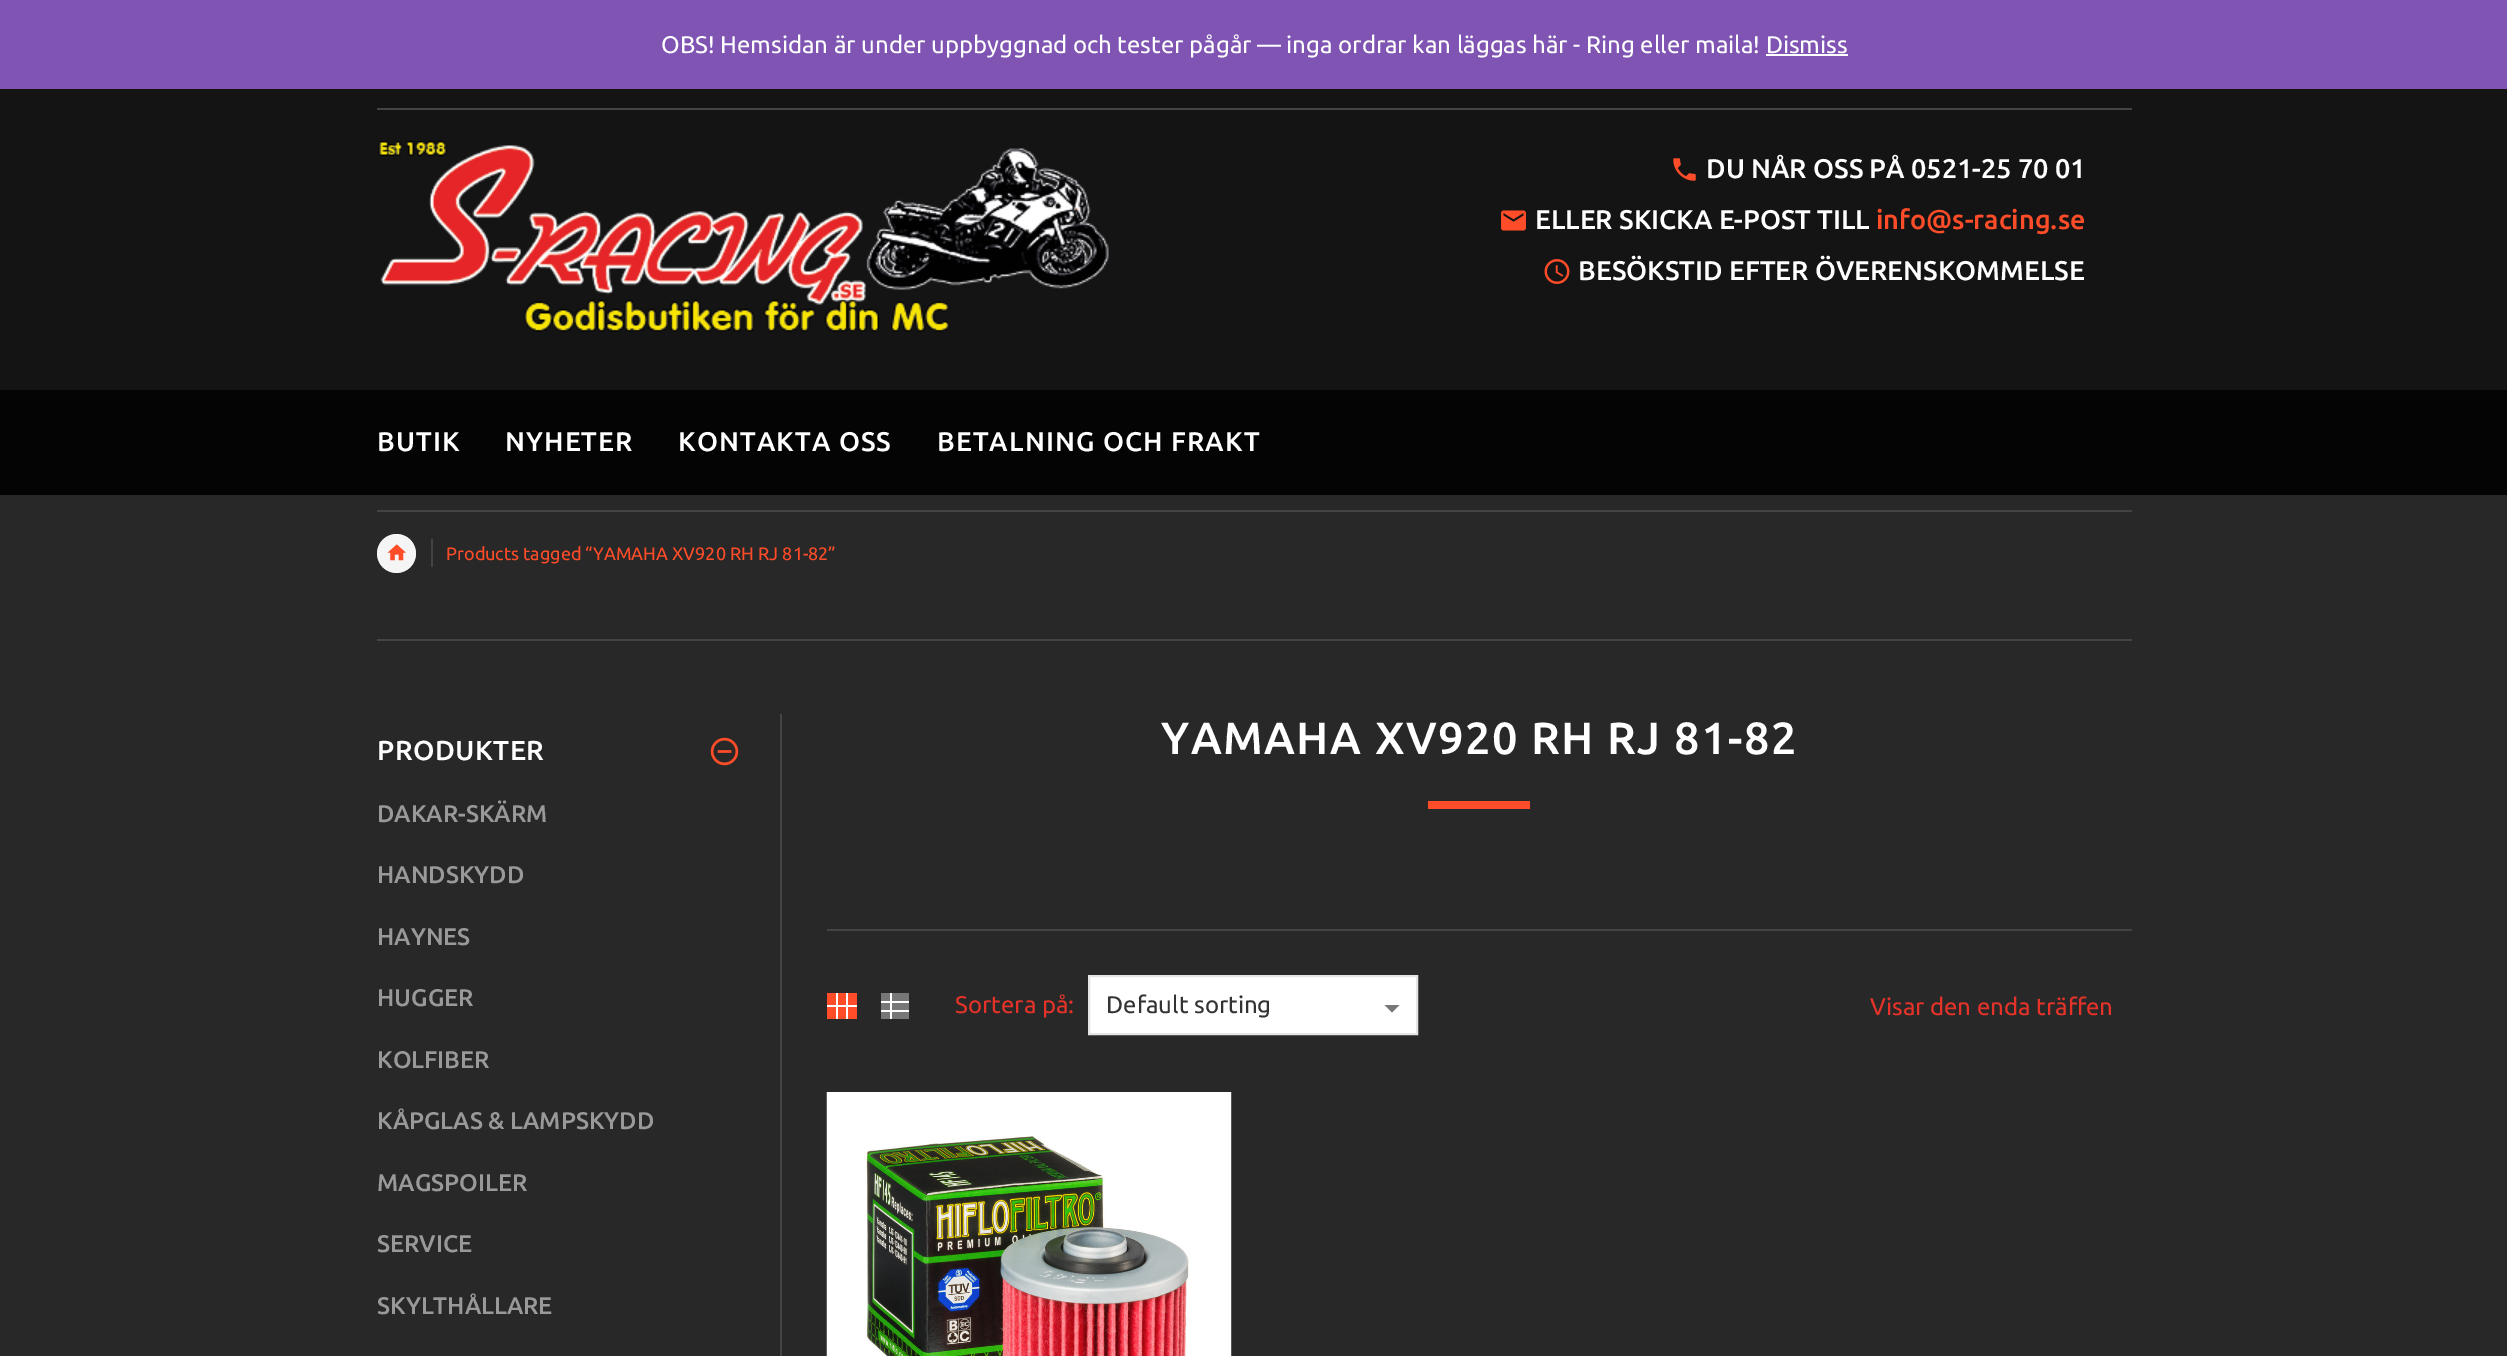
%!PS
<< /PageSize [2507 1356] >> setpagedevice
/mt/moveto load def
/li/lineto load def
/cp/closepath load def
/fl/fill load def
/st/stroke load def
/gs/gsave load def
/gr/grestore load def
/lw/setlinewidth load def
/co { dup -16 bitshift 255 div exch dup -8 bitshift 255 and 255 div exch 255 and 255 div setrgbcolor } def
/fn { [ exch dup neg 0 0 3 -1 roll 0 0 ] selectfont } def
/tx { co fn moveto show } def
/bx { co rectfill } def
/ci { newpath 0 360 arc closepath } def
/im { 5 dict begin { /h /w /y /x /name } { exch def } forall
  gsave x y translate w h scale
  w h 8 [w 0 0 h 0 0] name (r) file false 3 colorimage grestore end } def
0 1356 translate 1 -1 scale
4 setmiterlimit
0 0 2507 1356 16#282828 bx
0 0 2507 89 16#7F54B3 bx
1766 54 82 2 16#FFFFFF bx
0 89 2507 301 16#141414 bx
377 108 1755 2 16#444444 bx
(media/1.raw) 378 141 731 191 im
(media/2.raw) 1673 158 23 23 im
(media/3.raw) 1501 210 25 21 im
(media/4.raw) 1544 259 26 25 im
0 390 2507 105 16#040404 bx
377 510 1755 2 16#444444 bx
16#F5F5F5 co
396.5 553.5 19.5 ci fl
(media/5.raw) 387 544 19 17 im
431 539 2 28 16#444444 bx
377 639 1755 2 16#444444 bx
(media/6.raw) 710 737 29 29 im
780 714 2 642 16#444444 bx
1428 801 102 8 16#FF4C29 bx
827 929 1305 2 16#444444 bx
827 993 30 26 16#FF4C29 bx
827 1005 30 2 16#FFFFFF bx
836 993 2 26 16#FFFFFF bx
846 993 2 26 16#FFFFFF bx
881 993 28 26 16#777777 bx
881 1001 28 2 16#FFFFFF bx
890 993 2 26 16#FFFFFF bx
881 1010 28 2 16#FFFFFF bx
1089 976 mt 1417 976 li 1417 1034 li 1089 1034 li cp gs fl gr
16#E5E5E5 co
2 lw
st
16#777777 co
1384.5 1005 mt 1399.5 1005 li 1392 1012.5 li cp fl
1231 1092 1 264 16#202020 bx
(media/7.raw) 826 1092 406 264 im
(OBS! Hemsidan är under uppbyggnad och tester pågår — inga ordrar kan läggas här - Ring eller maila! Dismiss) 661 53 /Ubuntu-Regular 24 16#FFFFFF tx
(DU NÅR OSS PÅ 0521-25 70 01) 1706 178 /Ubuntu-Medium 27 16#FFFFFF tx
(ELLER SKICKA E-POST TILL) 1535 229 /Ubuntu-Medium 27 16#FFFFFF tx
(info@s-racing.se) 1876 229 /Ubuntu-Medium 27 16#FF4C29 tx
(BESÖKSTID EFTER ÖVERENSKOMMELSE) 1578 280 /Ubuntu-Medium 27 16#FFFFFF tx
377 451 mt 1.1 0 (BUTIK) ashow
505 451 mt 1.1 0 (NYHETER) ashow
678 451 mt 1.1 0 (KONTAKTA OSS) ashow
937 451 mt 1.1 0 (BETALNING OCH FRAKT) ashow
(Products tagged “YAMAHA XV920 RH RJ 81-82”) 446 560 /Ubuntu-Regular 18 16#FF4C29 tx
/Ubuntu-Medium 27.5 fn
16#FFFFFF co
377 760 mt .5 0 (PRODUKTER) ashow
(DAKAR-SKÄRM) 377 822 /Ubuntu-Medium 24 16#999999 tx
(HANDSKYDD) 377 883 /Ubuntu-Medium 24 16#999999 tx
(HAYNES) 377 945 /Ubuntu-Medium 24 16#999999 tx
(HUGGER) 377 1006 /Ubuntu-Medium 24 16#999999 tx
(KOLFIBER) 377 1068 /Ubuntu-Medium 24 16#999999 tx
(KÅPGLAS & LAMPSKYDD) 377 1129 /Ubuntu-Medium 24 16#999999 tx
(MAGSPOILER) 377 1191 /Ubuntu-Medium 24 16#999999 tx
(SERVICE) 377 1252 /Ubuntu-Medium 24 16#999999 tx
(SKYLTHÅLLARE) 377 1314 /Ubuntu-Medium 24 16#999999 tx
/Ubuntu-Medium 45 fn
16#FFFFFF co
1161 754 mt 1.5 0 (YAMAHA XV920 RH RJ 81-82) ashow
(Sortera på:) 955 1013 /Ubuntu-Regular 24 16#E63329 tx
(Default sorting) 1106 1013 /Ubuntu-Regular 24 16#333333 tx
(Visar den enda träffen) 1870 1015 /Ubuntu-Regular 24 16#E63329 tx
showpage
